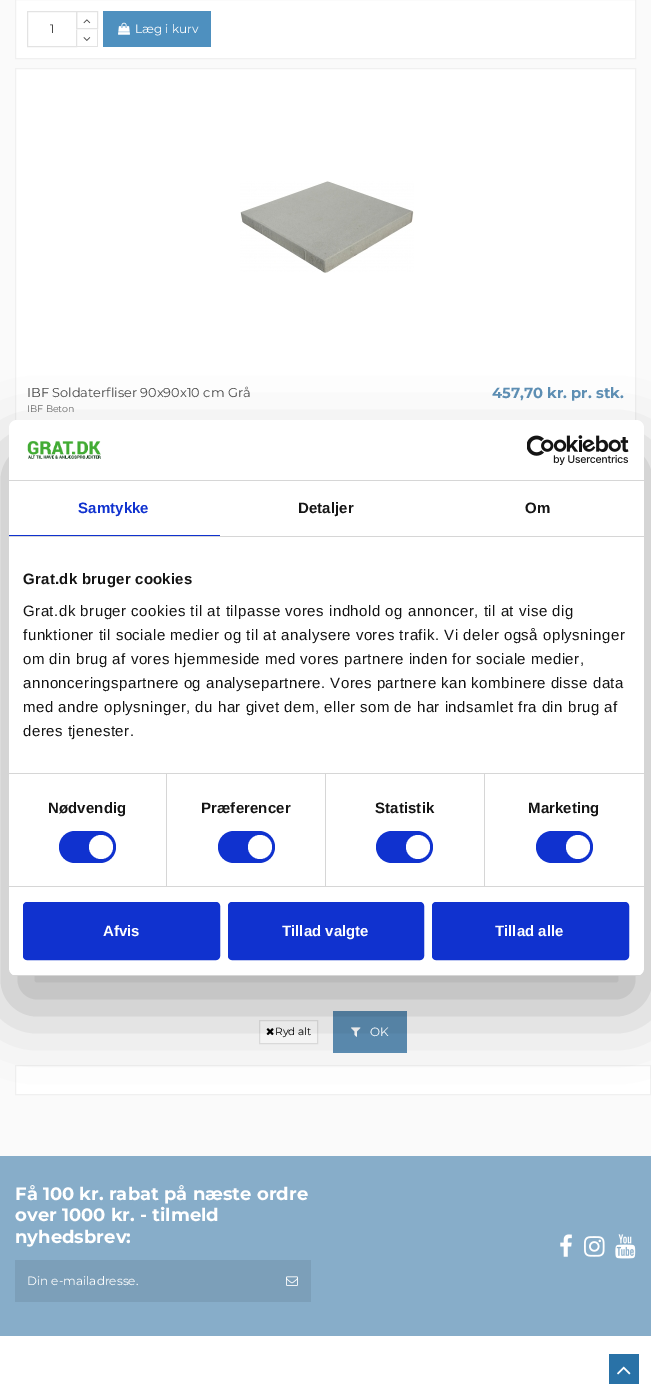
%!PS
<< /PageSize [651 1396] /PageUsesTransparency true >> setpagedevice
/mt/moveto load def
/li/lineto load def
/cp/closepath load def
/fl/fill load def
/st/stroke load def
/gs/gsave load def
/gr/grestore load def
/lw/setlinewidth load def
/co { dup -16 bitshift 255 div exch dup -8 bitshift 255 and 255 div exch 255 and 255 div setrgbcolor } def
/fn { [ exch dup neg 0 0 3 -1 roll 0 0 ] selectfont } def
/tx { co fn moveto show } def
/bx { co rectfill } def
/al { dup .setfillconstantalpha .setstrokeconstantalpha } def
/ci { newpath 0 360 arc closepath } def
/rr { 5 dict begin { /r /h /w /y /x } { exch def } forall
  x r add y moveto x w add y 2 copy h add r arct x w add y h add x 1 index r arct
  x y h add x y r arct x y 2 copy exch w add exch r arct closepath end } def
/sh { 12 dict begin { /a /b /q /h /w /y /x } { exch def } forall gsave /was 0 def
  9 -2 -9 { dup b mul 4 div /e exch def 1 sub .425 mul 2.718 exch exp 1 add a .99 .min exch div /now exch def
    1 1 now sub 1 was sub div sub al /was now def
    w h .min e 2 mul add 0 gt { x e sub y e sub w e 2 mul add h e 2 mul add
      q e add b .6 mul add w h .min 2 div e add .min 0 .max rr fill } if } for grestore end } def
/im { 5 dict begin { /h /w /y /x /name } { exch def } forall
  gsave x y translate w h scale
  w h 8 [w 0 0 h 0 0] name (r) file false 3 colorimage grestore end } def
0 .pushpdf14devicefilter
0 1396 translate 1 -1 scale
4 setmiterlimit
0 0 651 1396 16#FAFAFA bx
16#FFFFFF co
15.5 -.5 mt 635.5 -.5 li 635.5 58.5 li 15.5 58.5 li cp gs fl gr
16#F0F0F0 co
st
16#E3E3E3 co
27.5 11.5 49 35 rectstroke
76.5 11.5 21 17 rectstroke
(media/1.raw) 83 19 8 5 im
76 29 1 17 16#FFFFFF bx
16#E3E3E3 co
98 29 mt 98 47 li 97 46 li 97 30 li cp fl
76 46 22 1 16#E3E3E3 bx
76 47 mt 76 29 li 77 30 li 77 46 li cp fl
(media/2.raw) 83 37 8 4 im
103 11 108 36 16#4E90BF bx
(media/3.raw) 118 22 12 13 im
16 69 619 352 16#FFFFFF bx
16#F0F0F0 co
15.5 68.5 620 406 rectstroke
(media/4.raw) 240 181 174 92 im
16#FFFFFF co
259.5 1020.5 mt 317.5 1020.5 li 317.5 1043.5 li 259.5 1043.5 li cp gs fl gr
16#E3E3E3 co
st
(media/5.raw) 266 1028 8 8 im
333 1011 74 42 16#5D8EB3 bx
(media/6.raw) 351 1027 10 10 im
16#FFFFFF co
15.5 1065.5 mt 650.5 1065.5 li 650.5 1094.5 li 15.5 1094.5 li cp gs fl gr
16#F0F0F0 co
st
0 1336 651 60 16#FFFFFF bx
0 1156 651 180 16#87ADC9 bx
15 1260 296 42 16#7C9FB9 bx
(media/7.raw) 286 1276 12 10 im
(media/8.raw) 560 1234 12 23 im
(media/9.raw) 584 1236 21 21 im
(media/10.raw) 615 1234 21 25 im
16#000000 co
9 452 635 556 8 34 .3 sh
16#FFFFFF co
9 420 635 556 8 rr fl
9 480 635 1 16#D6D6D6 bx
(media/11.raw) 27 441 74 18 im
(media/12.raw) 527 435 102 30 im
9 536 635 1 16#D6D6D6 bx
9 535 211 1 16#1032CF bx
9 773 635 1 16#D6D6D6 bx
9 886 635 1 16#D6D6D6 bx
166 774 1 112 16#D6D6D6 bx
16#1032CF co
59 831 57 32 16 rr fl
16#FFFFFF co
101 847 12 ci fl
325 774 1 112 16#D6D6D6 bx
16#1032CF co
218 831 57 32 16 rr fl
16#FFFFFF co
260 847 12 ci fl
484 774 1 112 16#D6D6D6 bx
16#1032CF co
376 831 57 32 16 rr fl
16#FFFFFF co
418 847 12 ci fl
16#1032CF co
536 831 57 32 16 rr fl
16#FFFFFF co
578 847 12 ci fl
gs
9 420 635 556 8 rr clip newpath
9 975 635 1 16#D6D6D6 bx
gr
16#1032CF co
24 903 195 56 3 rr gs fl gr
2 lw
st
229 903 194 56 3 rr gs fl gr
st
433 903 195 56 3 rr gs fl gr
st
609 1354 30 30 16#2972A7 bx
(media/13.raw) 617 1366 14 9 im
(1) 50 33 /Montserrat-Regular 12 16#484848 tx
(Læg i kurv) 135 33 /Montserrat-Regular 12 16#FFFFFF tx
(IBF Soldaterfliser 90x90x10 cm Grå) 27 397 /Montserrat-Regular 12.9 16#484848 tx
(IBF Beton) 27 412 /Montserrat-Regular 9.5 16#6D6D6D tx
(457,70 kr. pr. stk.) 492 398 /Montserrat-Bold 14.75 16#5D8EB3 tx
(Ryd alt) 275 1035 /Montserrat-Regular 10.5 16#000000 tx
(OK) 370 1036 /Montserrat-Regular 12 16#FFFFFF tx
(Få 100 kr. rabat på næste ordre) 15 1200 /Montserrat-Bold 18 16#FFFFFF tx
(over 1000 kr. - tilmeld) 15 1221 /Montserrat-Bold 18 16#FFFFFF tx
(nyhedsbrev:) 15 1243 /Montserrat-Bold 18 16#FFFFFF tx
(Din e-mailadresse.) 27 1285 /Montserrat-Regular 12 16#FFFFFF tx
/LiberationSans-Bold 15 fn
16#1032CF co
78 513 mt .1 0 (Samtykke) ashow
16#141414 co
298 513 mt .1 0 (Detaljer) ashow
525 513 mt .1 0 (Om) ashow
23 584 mt .25 0 (Grat.dk bruger cookies) ashow
/LiberationSans-Regular 15 fn
23 616 mt .5 0 (Grat.dk bruger cookies til at tilpasse vores indhold og annoncer, til at vise dig) ashow
23 640 mt .5 0 (funktioner til sociale medier og til at analysere vores trafik. Vi deler også oplysninger) ashow
23 664 mt .5 0 (om din brug af vores hjemmeside med vores partnere inden for sociale medier,) ashow
23 688 mt .5 0 (annonceringspartnere og analysepartnere. Vores partnere kan kombinere disse data) ashow
23 712 mt .5 0 (med andre oplysninger, du har givet dem, eller som de har indsamlet fra din brug af) ashow
23 736 mt .5 0 (deres tjenester.) ashow
/LiberationSans-Bold 15 fn
48 813 mt .1 0 (Nødvendig) ashow
201 813 mt .1 0 (Præferencer) ashow
375 813 mt .1 0 (Statistik) ashow
528 813 mt .1 0 (Marketing) ashow
(Afvis) 103 936 /LiberationSans-Bold 15 16#FFFFFF tx
(Tillad valgte) 282 936 /LiberationSans-Bold 15 16#FFFFFF tx
(Tillad alle) 495 936 /LiberationSans-Bold 15 16#FFFFFF tx
.poppdf14devicefilter showpage
